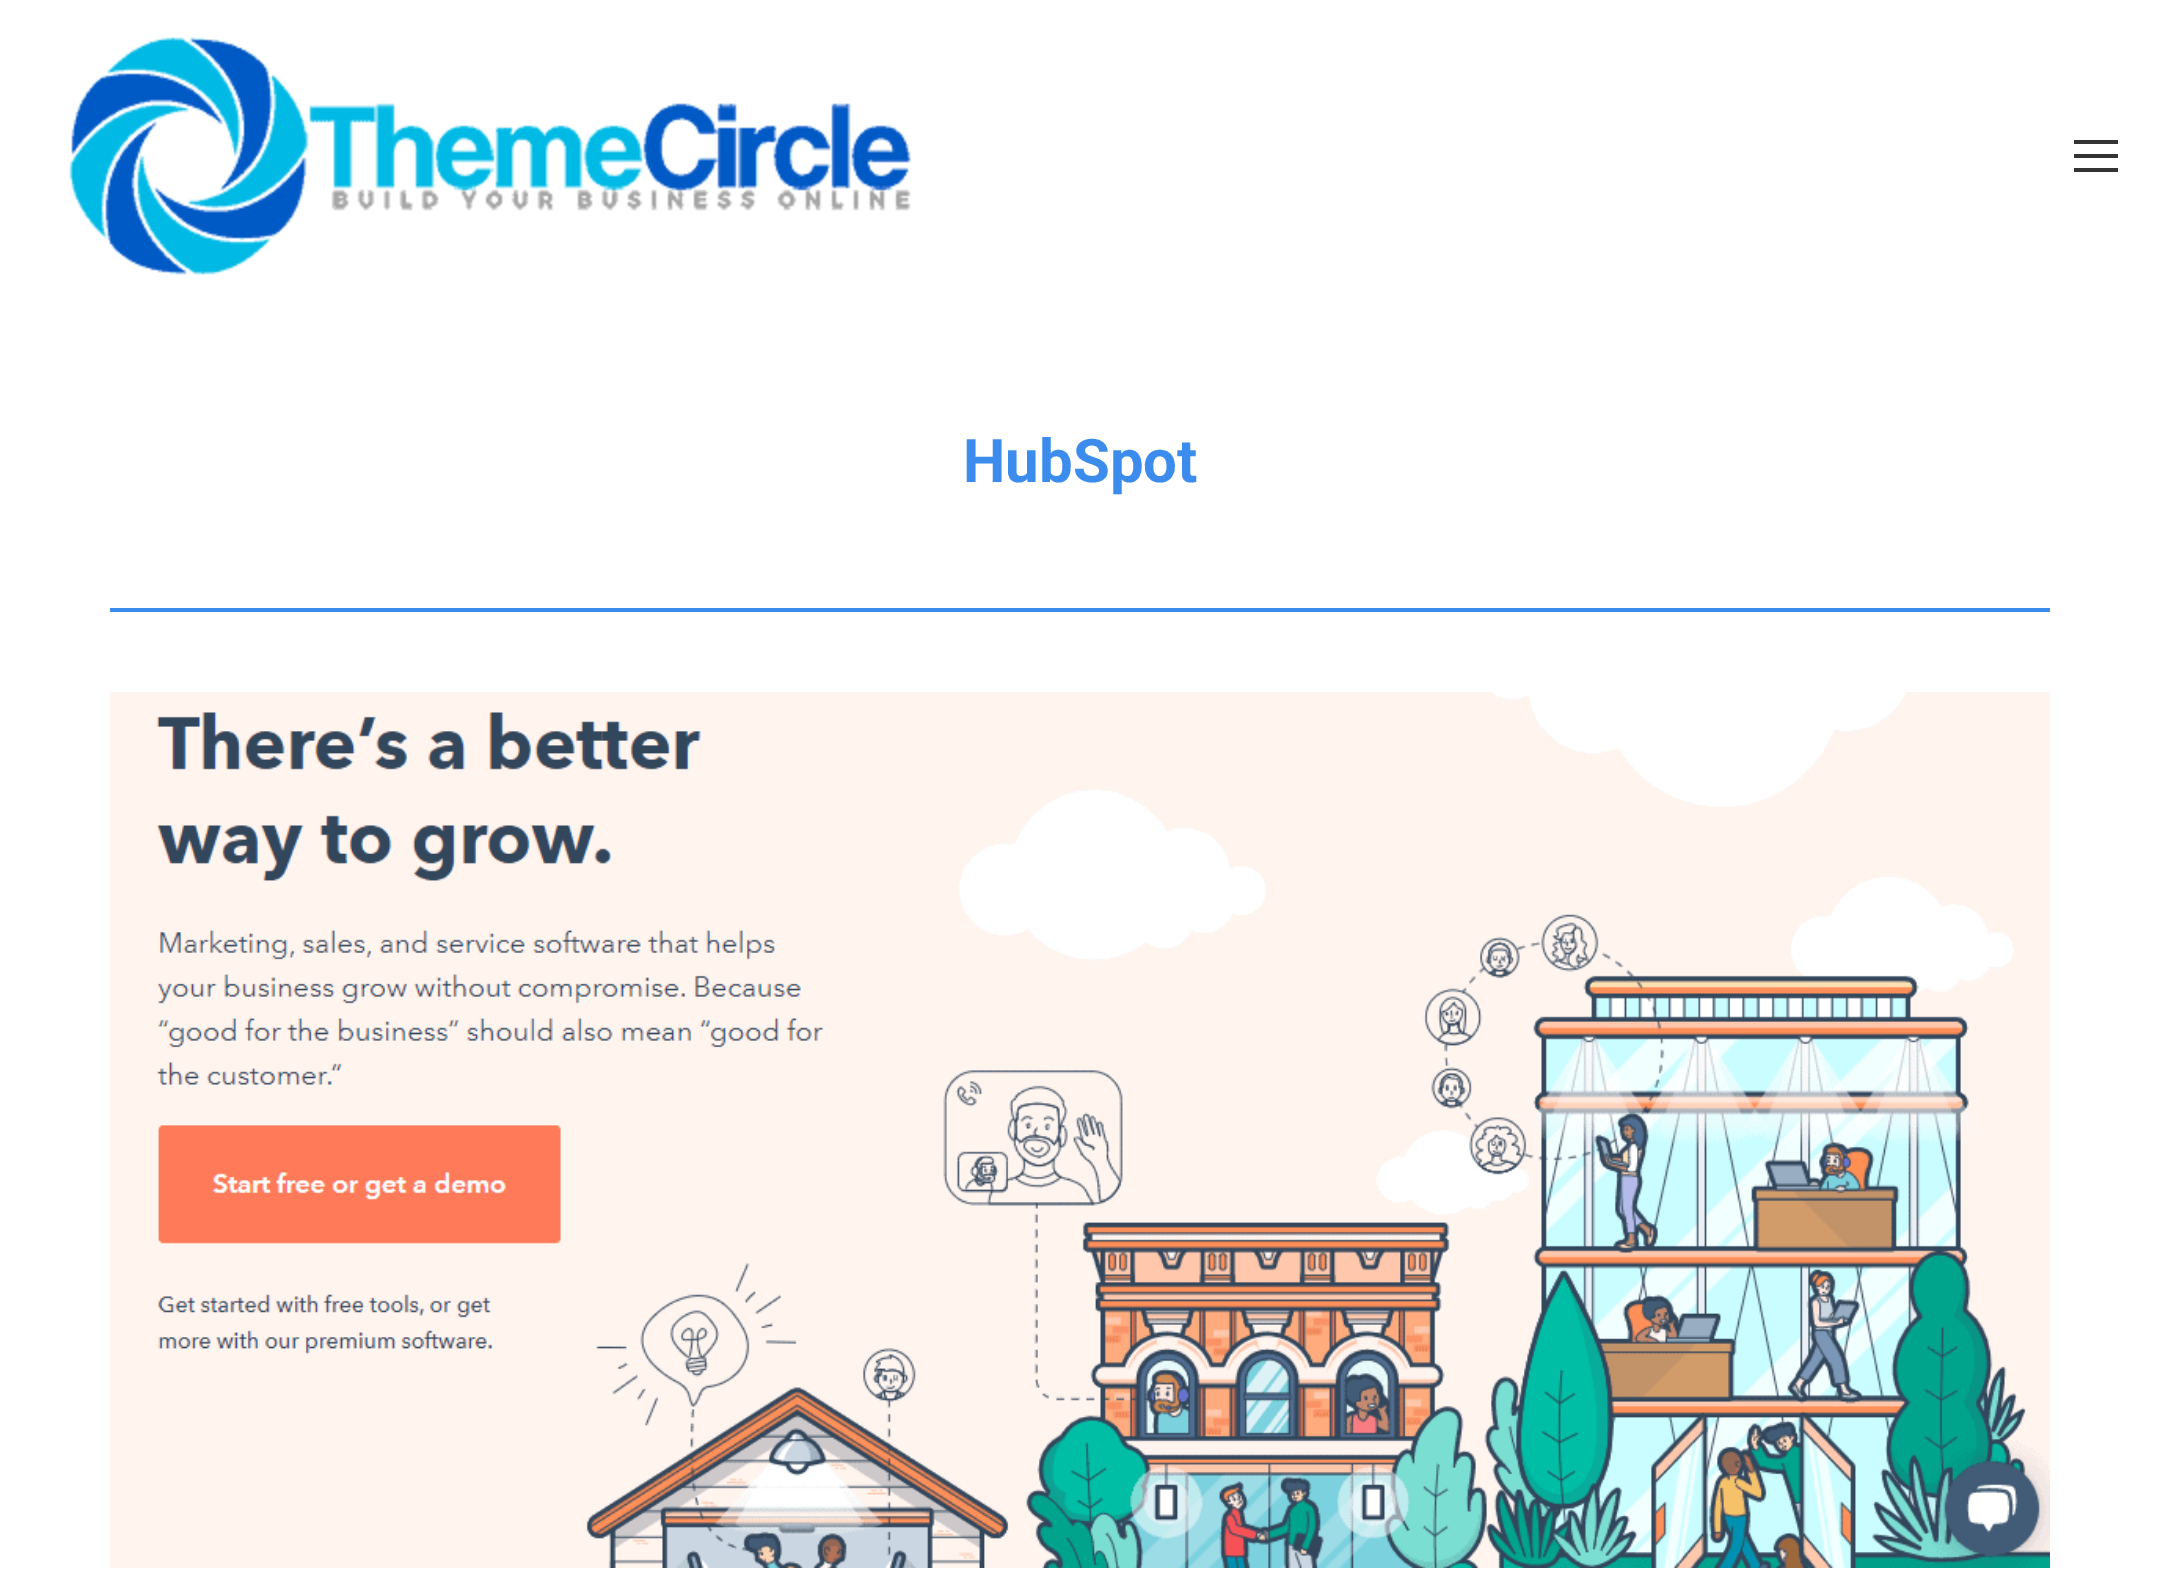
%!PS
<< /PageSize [2159 1584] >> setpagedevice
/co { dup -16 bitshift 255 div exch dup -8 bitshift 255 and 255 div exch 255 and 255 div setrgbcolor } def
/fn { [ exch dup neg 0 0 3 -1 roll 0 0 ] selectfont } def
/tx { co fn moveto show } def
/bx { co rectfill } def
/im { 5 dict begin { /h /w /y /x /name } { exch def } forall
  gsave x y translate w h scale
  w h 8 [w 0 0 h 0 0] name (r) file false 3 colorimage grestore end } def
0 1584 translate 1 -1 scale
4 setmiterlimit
0 0 2159 1584 16#FFFFFF bx
(media/1.raw) 69 37 842 238 im
2074 140 44 4 16#333333 bx
2074 154 44 4 16#333333 bx
2074 168 44 4 16#333333 bx
110 608 1940 4 16#3B8CED bx
(media/2.raw) 110 692 1940 876 im
(HubSpot) 963 482 /Roboto-Bold 60 16#3B8CED tx
showpage
